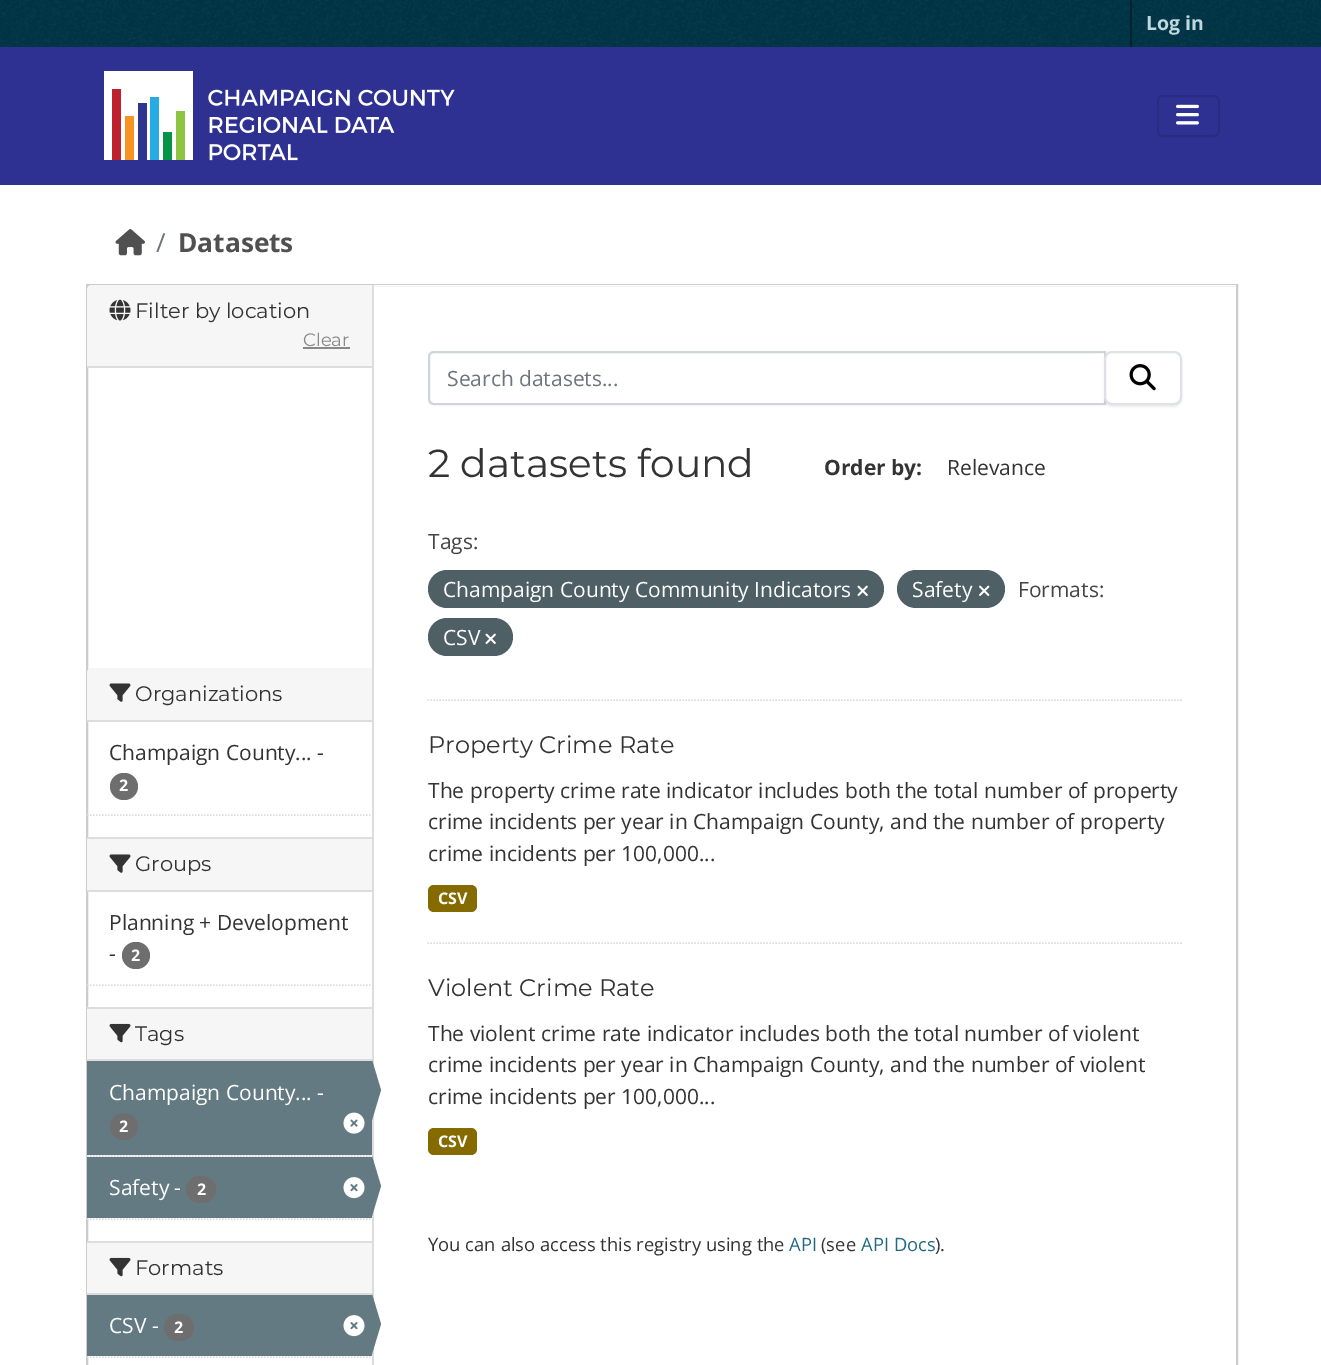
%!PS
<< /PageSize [1321 1365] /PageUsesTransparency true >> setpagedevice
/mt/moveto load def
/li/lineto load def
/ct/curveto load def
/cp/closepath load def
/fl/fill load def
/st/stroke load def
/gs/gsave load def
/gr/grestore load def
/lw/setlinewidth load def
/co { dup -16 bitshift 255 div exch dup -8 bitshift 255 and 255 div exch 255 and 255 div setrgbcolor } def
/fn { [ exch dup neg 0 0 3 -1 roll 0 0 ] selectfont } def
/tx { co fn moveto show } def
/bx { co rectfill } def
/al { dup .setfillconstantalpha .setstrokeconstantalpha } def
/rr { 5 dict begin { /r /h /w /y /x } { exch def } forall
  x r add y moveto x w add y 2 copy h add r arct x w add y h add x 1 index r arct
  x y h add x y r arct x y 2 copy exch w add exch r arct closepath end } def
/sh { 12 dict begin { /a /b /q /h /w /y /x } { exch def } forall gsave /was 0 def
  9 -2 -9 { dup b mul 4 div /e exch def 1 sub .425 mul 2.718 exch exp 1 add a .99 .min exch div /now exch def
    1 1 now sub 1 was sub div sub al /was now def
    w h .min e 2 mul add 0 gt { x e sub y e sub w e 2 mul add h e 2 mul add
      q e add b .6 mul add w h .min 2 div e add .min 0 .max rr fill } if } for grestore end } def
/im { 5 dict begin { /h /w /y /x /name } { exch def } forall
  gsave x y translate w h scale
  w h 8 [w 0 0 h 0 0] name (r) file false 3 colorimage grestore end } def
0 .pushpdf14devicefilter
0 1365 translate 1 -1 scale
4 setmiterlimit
0 0 1321 1365 16#003647 bx
(media/1.raw) 0 0 1321 46 im
1130 0 2 47 16#00232E bx
0 47 1321 138 16#2E3191 bx
(media/2.raw) 104 71 351 90 im
16#292C83 co
2 lw
1158 96 61 40 5 rr st
(media/3.raw) 1176 104 23 21 im
0 185 1321 1180 16#FFFFFF bx
(media/4.raw) 115 229 30 27 im
16#CCCCCC co
87 285 1150 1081 rectstroke
16#F6F6F6 co
92 285 mt 372 285 li 372 368 li 87 368 li 87 290 li 87 287 89 285 92 285 ct cp fl
87 366 285 2 16#DDDDDD bx
(media/5.raw) 109 299 22 22 im
303 347 47 2 16#888888 bx
16#F6F6F6 co
92 668 mt 372 668 li 372 722 li 87 722 li 87 673 li 87 670 89 668 92 668 ct cp fl
87 720 285 2 16#DDDDDD bx
(media/6.raw) 109 683 22 19 im
16#6E6E6E co
110 773 28 27 13.5 rr fl
16#DDDDDD co
1.5 lw
[1.5 1.5] 0 setdash
87 815 mt 372 815 li st
87 839 285 51 16#F6F6F6 bx
87 837 285 2 16#DDDDDD bx
87 890 285 2 16#DDDDDD bx
(media/6.raw) 109 854 22 19 im
16#6E6E6E co
122 942 28 27 13.5 rr fl
16#DDDDDD co
87 985 mt 372 985 li st
87 1009 285 50 16#F6F6F6 bx
87 1007 285 2 16#DDDDDD bx
87 1059 285 2 16#DDDDDD bx
(media/7.raw) 109 1023 22 20 im
87 1155 285 2 16#F6F6F6 bx
16#DDDDDD co
87 1156 mt 372 1156 li st
87 1061 285 94 16#647A82 bx
372 285 2 1080 16#DDDDDD bx
16#647A82 co
372 1120 mt 372 1060 li 381 1090 li cp fl
16#6E6E6E co
110 1113 28 27 13.5 rr fl
(media/8.raw) 343 1112 22 22 im
87 1157 285 61 16#647A82 bx
16#6E6E6E co
186 1176 30 27 13.5 rr fl
(media/9.raw) 343 1177 22 22 im
16#647A82 co
372 1216 mt 372 1156 li 381 1186 li cp fl
16#DDDDDD co
87 1219 mt 372 1219 li st
87 1243 285 50 16#F6F6F6 bx
87 1241 285 2 16#DDDDDD bx
87 1293 285 2 16#DDDDDD bx
(media/7.raw) 109 1257 22 20 im
87 1295 285 61 16#647A82 bx
16#6E6E6E co
164 1314 30 27 13.5 rr fl
(media/9.raw) 343 1315 22 22 im
16#647A82 co
372 1354 mt 372 1294 li 381 1324 li cp fl
16#DDDDDD co
87 1357 mt 372 1357 li st
374 285 862 1 16#FFFFFF bx
16#DDDDDD co
427.5 700 mt 1182 700 li st
16#CED4DA co
2 lw
[] 0 setdash
434 352 mt 1105 352 li 1105 404 li 434 404 li 431 404 429 402 429 399 ct 429 357 li 429 354 431 352 434 352 ct cp st
16#000000 co
1104 353 78 54 8 1 .07 sh
16#FFFFFF co
1105 352 76 52 7 rr gs fl gr
16#DEE2E6 co
st
(media/10.raw) 1129 364 27 27 im
16#4E5F65 co
428 570 456 38 19 rr fl
(media/11.raw) 857 585 11 11 im
897 570 108 38 19 rr fl
(media/12.raw) 979 585 11 11 im
428 618 85 38 19 rr fl
(media/11.raw) 485 633 11 11 im
16#DDDDDD co
1.5 lw
[1.5 1.5] 0 setdash
427.5 943 mt 1182 943 li st
16#856A00 co
428 885 49 27 6 rr fl
428 1128 49 27 6 rr fl
(Log in) 1146 30 /OpenSans-Bold 19.5 16#BFD7DE tx
(/) 156 252 /OpenSans-Regular 26.25 16#6C757D tx
(Datasets) 178 252 /OpenSans-Bold 26.25 16#505050 tx
(Filter by location) 135 318 /Montserrat-Thin 21 16#333333 tx
(Clear) 303 346 /Montserrat-Thin 18 16#888888 tx
(Organizations) 135 701 /Montserrat-Thin 21 16#333333 tx
(Champaign County... -) 109 760 /OpenSans-Regular 21 16#333333 tx
(2) 119 791 /OpenSans-Bold 16 16#FFFFFF tx
(Groups) 135 871 /Montserrat-Thin 21 16#333333 tx
(Planning + Development) 109 930 /OpenSans-Regular 21 16#333333 tx
(-) 109 961 /OpenSans-Regular 21 16#333333 tx
(2) 131 961 /OpenSans-Bold 16 16#FFFFFF tx
(Tags) 135 1041 /Montserrat-Thin 21 16#333333 tx
(Champaign County... -) 109 1100 /OpenSans-Regular 21 16#FFFFFF tx
(2) 119 1132 /OpenSans-Bold 16 16#FFFFFF tx
(Safety -) 109 1195 /OpenSans-Regular 21 16#FFFFFF tx
(2) 197 1195 /OpenSans-Bold 16 16#FFFFFF tx
(Formats) 135 1275 /Montserrat-Thin 21 16#333333 tx
(CSV -) 109 1333 /OpenSans-Regular 21 16#FFFFFF tx
(2) 174 1333 /OpenSans-Bold 16 16#FFFFFF tx
(Search datasets...) 447 386 /OpenSans-Regular 21 16#6C757D tx
(2 datasets found) 428 477 /Montserrat-Thin 39.1 16#333333 tx
(Order by:) 824 475 /OpenSans-Bold 21 16#333333 tx
(Relevance) 947 475 /OpenSans-Regular 21 16#333333 tx
(Tags:) 428 549 /OpenSans-Regular 21 16#444444 tx
(Champaign County Community Indicators) 443 597 /OpenSans-Regular 21 16#FFFFFF tx
(Safety) 912 597 /OpenSans-Regular 21 16#FFFFFF tx
(Formats:) 1018 597 /OpenSans-Regular 21 16#444444 tx
(CSV) 443 645 /OpenSans-Regular 21 16#FFFFFF tx
(Property Crime Rate) 428 753 /Montserrat-Thin 24 16#333333 tx
(The property crime rate indicator includes both the total number of property) 428 798 /OpenSans-Regular 21 16#333333 tx
(crime incidents per year in Champaign County, and the number of property) 428 829 /OpenSans-Regular 21 16#333333 tx
(crime incidents per 100,000...) 428 861 /OpenSans-Regular 21 16#333333 tx
(CSV) 438 904 /OpenSans-Bold 16 16#FFFFFF tx
(Violent Crime Rate) 428 996 /Montserrat-Thin 24 16#333333 tx
(The violent crime rate indicator includes both the total number of violent) 428 1041 /OpenSans-Regular 21 16#333333 tx
(crime incidents per year in Champaign County, and the number of violent) 428 1072 /OpenSans-Regular 21 16#333333 tx
(crime incidents per 100,000...) 428 1104 /OpenSans-Regular 21 16#333333 tx
(CSV) 438 1147 /OpenSans-Bold 16 16#FFFFFF tx
(You can also access this registry using the) 428 1251 /OpenSans-Regular 18.4 16#333333 tx
(API) 789 1251 /OpenSans-Regular 18.4 16#206B82 tx
(\(see) 821 1251 /OpenSans-Regular 18.4 16#333333 tx
(API Docs) 861 1251 /OpenSans-Regular 18.4 16#206B82 tx
(\).) 935 1251 /OpenSans-Regular 18.4 16#333333 tx
.poppdf14devicefilter showpage
